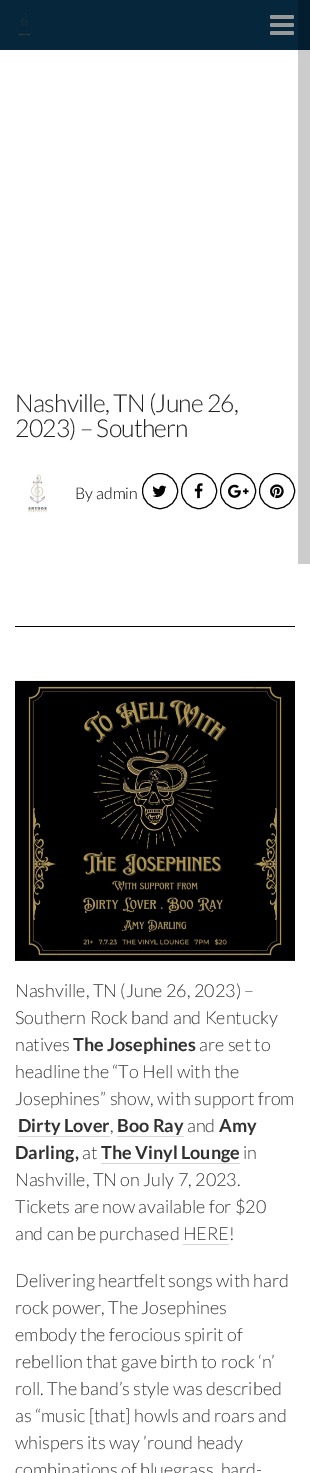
%!PS
<< /PageSize [310 1473] >> setpagedevice
/mt/moveto load def
/st/stroke load def
/co { dup -16 bitshift 255 div exch dup -8 bitshift 255 and 255 div exch 255 and 255 div setrgbcolor } def
/fn { [ exch dup neg 0 0 3 -1 roll 0 0 ] selectfont } def
/tx { co fn moveto show } def
/bx { co rectfill } def
/ci { newpath 0 360 arc closepath } def
/im { 5 dict begin { /h /w /y /x /name } { exch def } forall
  gsave x y translate w h scale
  w h 8 [w 0 0 h 0 0] name (r) file false 3 colorimage grestore end } def
0 1473 translate 1 -1 scale
4 setmiterlimit
0 0 310 1473 16#FFFFFF bx
298 50 12 514 16#CCCCCC bx
0 0 298 50 16#06263B bx
298 0 12 50 16#051E2F bx
(media/1.raw) 18 13 12 23 im
(media/2.raw) 270 15 24 20 im
(media/3.raw) 28 474 19 39 im
16#000000 co
160 491 17.5 ci st
(media/4.raw) 152 485 15 12 im
199 491 17.5 ci st
(media/5.raw) 194 483 9 16 im
238 491 17.5 ci st
(media/6.raw) 228 484 21 14 im
277 491 17.5 ci st
(media/7.raw) 270 484 14 15 im
15 626 280 1 16#000000 bx
(media/8.raw) 15 680 280 281 im
18 1136 92 1 16#D6D6D6 bx
117 1136 67 1 16#D6D6D6 bx
101 1163 139 1 16#D6D6D6 bx
183 1244 46 1 16#D6D6D6 bx
/Lato-Light 24.75 fn
16#222222 co
15 412 mt -.8 0 (Nashville, TN \(June 26,) ashow
15 437 mt -.8 0 (2023\) – Southern) ashow
(By admin) 75 499 /Lato-Light 16 16#000000 tx
(Nashville, TN \(June 26, 2023\) –) 15 997 /Lato-Light 18 16#313131 tx
(Southern Rock band and Kentucky) 15 1024 /Lato-Light 18 16#313131 tx
(natives) 15 1051 /Lato-Light 18 16#313131 tx
(The Josephines) 73 1051 /Lato-Bold 18 16#313131 tx
(are set to) 199 1051 /Lato-Light 18 16#313131 tx
(headline the “To Hell with the) 15 1078 /Lato-Light 18 16#313131 tx
(Josephines” show, with support from) 15 1105 /Lato-Light 18 16#313131 tx
(Dirty Lover) 18 1132 /Lato-Bold 18 16#313131 tx
(,) 110 1132 /Lato-Light 18 16#313131 tx
(Boo Ray) 117 1132 /Lato-Bold 18 16#313131 tx
(and) 187 1132 /Lato-Light 18 16#313131 tx
(Amy) 219 1132 /Lato-Bold 18 16#313131 tx
(Darling) 15 1159 /Lato-Bold 18 16#313131 tx
(,) 75 1159 /Lato-Bold 18 16#313131 tx
(at) 82 1159 /Lato-Light 18 16#313131 tx
(The Vinyl Lounge) 101 1159 /Lato-Bold 18 16#313131 tx
(in) 243 1159 /Lato-Light 18 16#313131 tx
(Nashville, TN on July 7, 2023.) 15 1186 /Lato-Light 18 16#313131 tx
(Tickets are now available for $20) 15 1213 /Lato-Light 18 16#313131 tx
(and can be purchased HERE) 15 1240 /Lato-Light 18 16#313131 tx
(!) 229 1240 /Lato-Light 18 16#313131 tx
(Delivering heartfelt songs with hard) 15 1287 /Lato-Light 18 16#313131 tx
(rock power, The Josephines) 15 1314 /Lato-Light 18 16#313131 tx
(embody the ferocious spirit of) 15 1341 /Lato-Light 18 16#313131 tx
(rebellion that gave birth to rock ‘n’) 15 1368 /Lato-Light 18 16#313131 tx
(roll. The band’s style was described) 15 1395 /Lato-Light 18 16#313131 tx
(as “music [that] howls and roars and) 15 1422 /Lato-Light 18 16#313131 tx
(whispers its way ’round heady) 15 1449 /Lato-Light 18 16#313131 tx
(combinations of bluegrass, hard-) 15 1476 /Lato-Light 18 16#313131 tx
showpage
